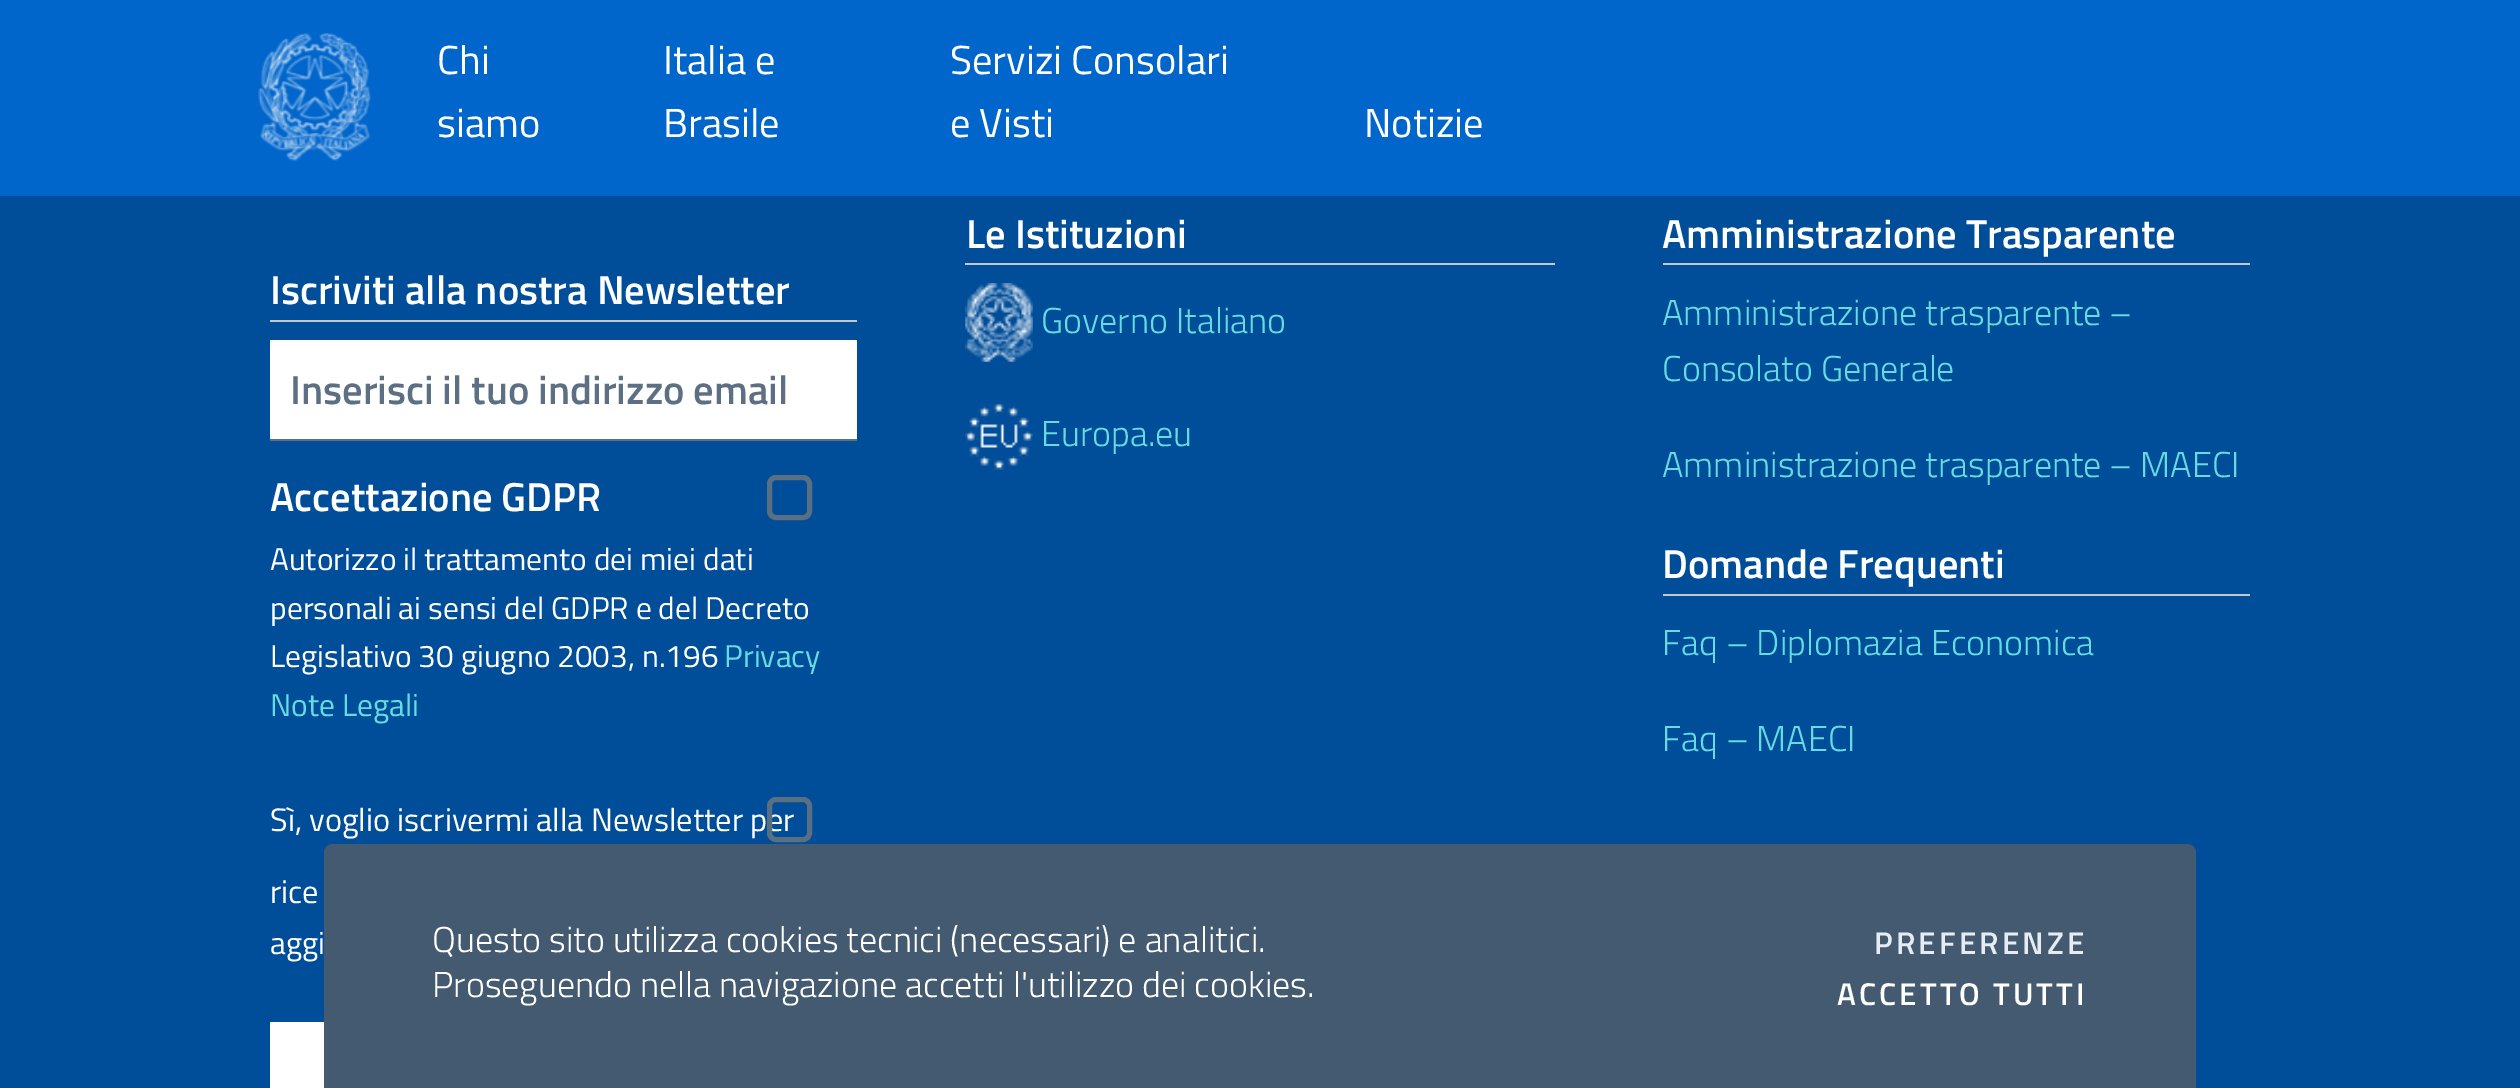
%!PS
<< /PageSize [2520 1088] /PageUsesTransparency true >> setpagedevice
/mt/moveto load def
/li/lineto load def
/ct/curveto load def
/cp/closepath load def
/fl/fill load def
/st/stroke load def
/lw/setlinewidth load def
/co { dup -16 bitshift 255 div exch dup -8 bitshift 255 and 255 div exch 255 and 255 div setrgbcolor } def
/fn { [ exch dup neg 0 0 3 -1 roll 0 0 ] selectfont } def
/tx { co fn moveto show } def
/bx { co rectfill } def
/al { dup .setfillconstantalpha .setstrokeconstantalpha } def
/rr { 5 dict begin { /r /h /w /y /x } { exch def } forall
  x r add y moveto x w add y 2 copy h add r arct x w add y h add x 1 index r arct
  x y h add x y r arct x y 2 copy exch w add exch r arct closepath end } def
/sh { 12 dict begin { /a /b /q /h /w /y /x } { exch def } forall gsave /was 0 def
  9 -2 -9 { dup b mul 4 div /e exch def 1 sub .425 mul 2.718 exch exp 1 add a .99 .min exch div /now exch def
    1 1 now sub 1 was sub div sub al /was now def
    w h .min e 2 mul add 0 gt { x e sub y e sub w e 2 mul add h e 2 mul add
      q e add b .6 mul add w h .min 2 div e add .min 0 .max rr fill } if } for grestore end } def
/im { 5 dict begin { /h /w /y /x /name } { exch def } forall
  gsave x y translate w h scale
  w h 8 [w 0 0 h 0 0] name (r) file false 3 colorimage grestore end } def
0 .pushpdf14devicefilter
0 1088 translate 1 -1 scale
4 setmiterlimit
0 0 2520 1088 16#004D99 bx
0 0 2520 196 16#0066CC bx
(media/1.raw) 258 33 113 129 im
270 320 587 2 16#C5C7C9 bx
270 340 587 99 16#FFFFFF bx
270 439 587 2 16#5D7083 bx
16#5B6F82 co
5 lw
769.5 477.5 40 40 6.5 rr st
16#000000 co
270 1024 587 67 0 1 .07 sh
270 1022 54 66 16#FFFFFF bx
965 263 590 2 16#C5C7C9 bx
(media/2.raw) 965 283 68 79 im
(media/3.raw) 965 403 68 67 im
1663 263 587 2 16#C5C7C9 bx
1663 594 587 2 16#C5C7C9 bx
16#435A70 co
333 844 mt 2187 844 li 2192 844 2196 848 2196 853 ct 2196 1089 li 324 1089 li 324 853 li 324 848 328 844 333 844 ct cp fl
(Chi) 437 74 /TitilliumWeb-Regular 40.5 16#FFFFFF tx
(siamo) 437 137 /TitilliumWeb-Regular 40.5 16#FFFFFF tx
(Italia e) 663 74 /TitilliumWeb-Regular 40.5 16#FFFFFF tx
(Brasile) 663 137 /TitilliumWeb-Regular 40.5 16#FFFFFF tx
(Servizi Consolari) 950 74 /TitilliumWeb-Regular 40.5 16#FFFFFF tx
(e Visti) 950 137 /TitilliumWeb-Regular 40.5 16#FFFFFF tx
(Notizie) 1364 137 /TitilliumWeb-Regular 40.5 16#FFFFFF tx
(Iscriviti alla nostra Newsletter) 270 304 /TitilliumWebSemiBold-SemiBold 40.5 16#FFFFFF tx
(Inserisci il tuo indirizzo email) 290 404 /TitilliumWebSemiBold-SemiBold 40.5 16#5D7083 tx
(Accettazione GDPR) 270 511 /TitilliumWebSemiBold-SemiBold 40.5 16#FFFFFF tx
(Autorizzo il trattamento dei miei dati) 270 570 /TitilliumWeb-Regular 31.5 16#FFFFFF tx
(personali ai sensi del GDPR e del Decreto) 270 619 /TitilliumWeb-Regular 31.5 16#FFFFFF tx
(Legislativo 30 giugno 2003, n.196) 270 667 /TitilliumWeb-Regular 31.5 16#FFFFFF tx
(Privacy) 724 667 /TitilliumWeb-Regular 31.5 16#65DDE0 tx
(Note Legali) 270 716 /TitilliumWeb-Regular 31.5 16#65DDE0 tx
(Sì, voglio iscrivermi alla Newsletter per) 270 831 /TitilliumWeb-Regular 32.4 16#FFFFFF tx
16#5B6F82 co
769.5 799.5 40 40 6.5 rr st
(rice) 270 903 /TitilliumWeb-Regular 32.4 16#FFFFFF tx
(aggi) 270 954 /TitilliumWeb-Regular 31.5 16#FFFFFF tx
(Le Istituzioni) 966 248 /TitilliumWebSemiBold-SemiBold 40.5 16#FFFFFF tx
(Governo Italiano) 1041 333 /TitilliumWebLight-Light 36 16#65DDE0 tx
(Europa.eu) 1041 446 /TitilliumWebLight-Light 36 16#65DDE0 tx
(Amministrazione Trasparente) 1662 248 /TitilliumWebSemiBold-SemiBold 40.5 16#FFFFFF tx
(Amministrazione trasparente –) 1662 325 /TitilliumWebLight-Light 36 16#65DDE0 tx
(Consolato Generale) 1662 381 /TitilliumWebLight-Light 36 16#65DDE0 tx
(Amministrazione trasparente – MAECI) 1662 477 /TitilliumWebLight-Light 36 16#65DDE0 tx
(Domande Frequenti) 1662 578 /TitilliumWebSemiBold-SemiBold 40.5 16#FFFFFF tx
(Faq – Diplomazia Economica) 1662 655 /TitilliumWebLight-Light 36 16#65DDE0 tx
(Faq – MAECI) 1662 751 /TitilliumWebLight-Light 36 16#65DDE0 tx
(Questo sito utilizza cookies tecnici \(necessari\) e analitici.) 432 952 /TitilliumWebLight-Light 36 16#FFFFFF tx
(Proseguendo nella navigazione accetti l'utilizzo dei cookies.) 432 997 /TitilliumWebLight-Light 36 16#FFFFFF tx
/TitilliumWebSemiBold-SemiBold 31.5 fn
16#E6ECF2 co
1874 954 mt 3.1 0 (PREFERENZE) ashow
16#FFFFFF co
1837 1005 mt 3.1 0 (ACCETTO TUTTI) ashow
.poppdf14devicefilter showpage
